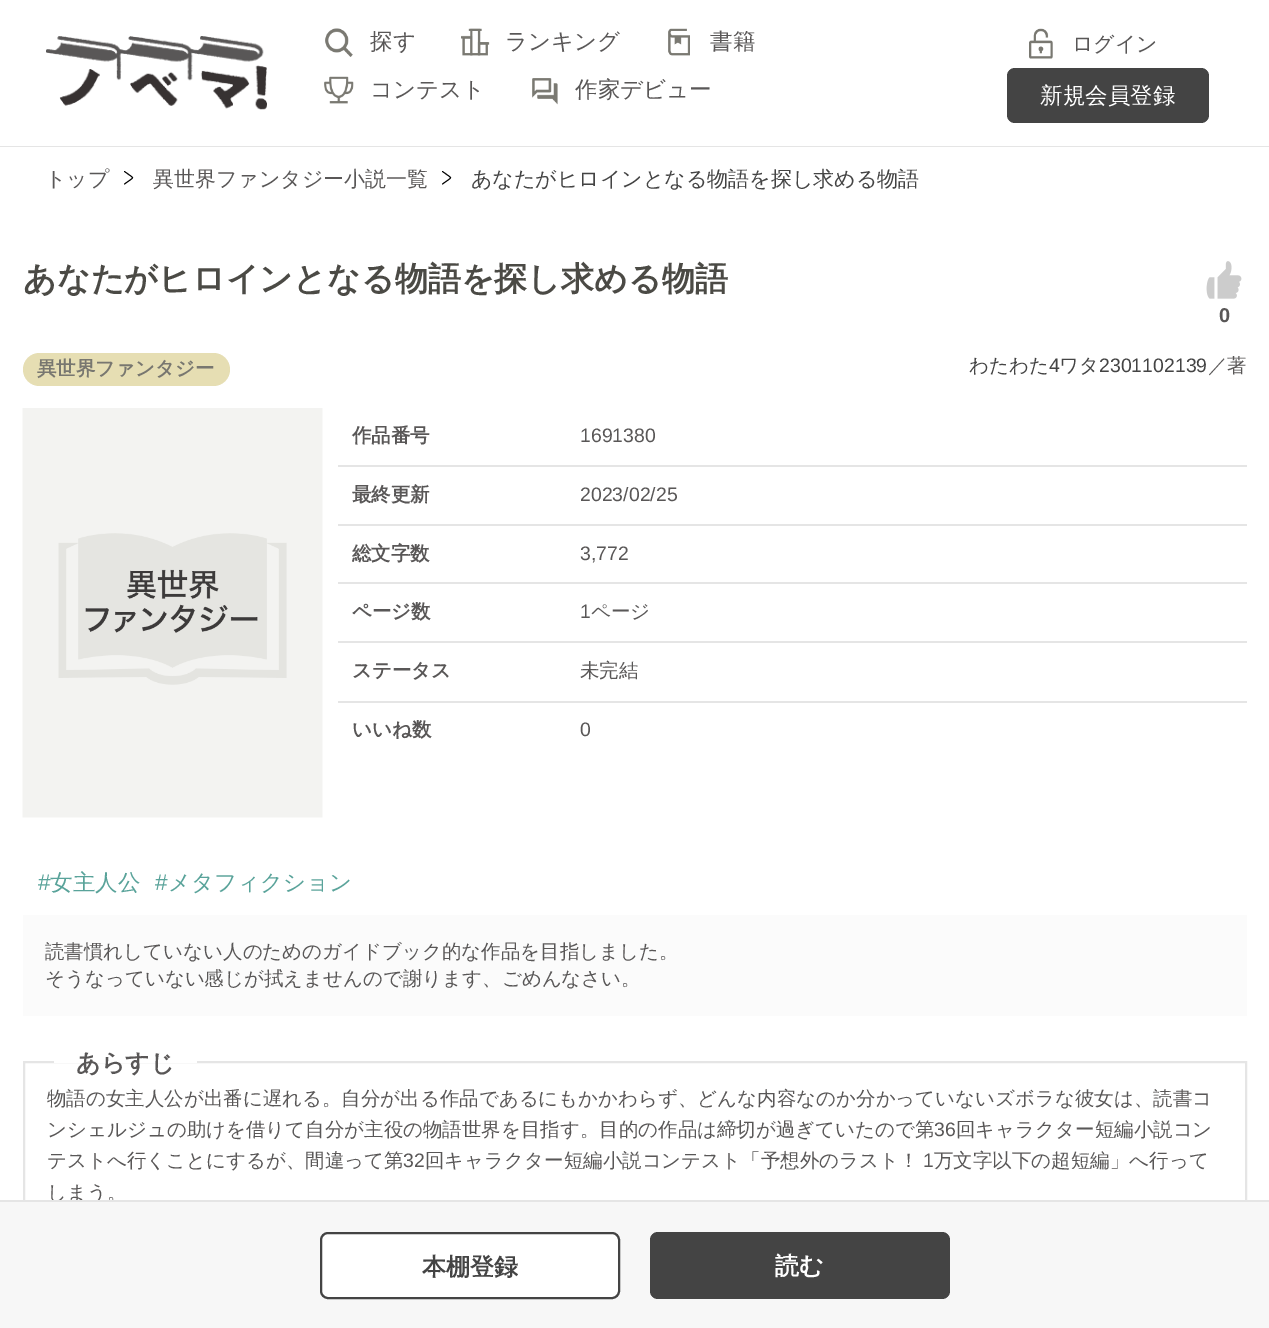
%!PS
<< /PageSize [1269 1328] >> setpagedevice
/mt/moveto load def
/li/lineto load def
/ct/curveto load def
/fl/fill load def
/st/stroke load def
/gs/gsave load def
/gr/grestore load def
/lw/setlinewidth load def
/co { dup -16 bitshift 255 div exch dup -8 bitshift 255 and 255 div exch 255 and 255 div setrgbcolor } def
/fn { [ exch dup neg 0 0 3 -1 roll 0 0 ] selectfont } def
/tx { co fn moveto show } def
/bx { co rectfill } def
/rr { 5 dict begin { /r /h /w /y /x } { exch def } forall
  x r add y moveto x w add y 2 copy h add r arct x w add y h add x 1 index r arct
  x y h add x y r arct x y 2 copy exch w add exch r arct closepath end } def
/im { 5 dict begin { /h /w /y /x /name } { exch def } forall
  gsave x y translate w h scale
  w h 8 [w 0 0 h 0 0] name (r) file false 3 colorimage grestore end } def
0 1328 translate 1 -1 scale
4 setmiterlimit
0 0 1269 1328 16#FFFFFF bx
0 146 1269 1 16#E5E5E5 bx
(media/1.raw) 46 36 221 74 im
(media/2.raw) 325 28 28 29 im
(media/3.raw) 461 28 29 28 im
(media/4.raw) 668 28 22 28 im
(media/5.raw) 324 76 30 28 im
(media/6.raw) 532 78 26 27 im
(media/7.raw) 1029 28 24 31 im
16#444444 co
1007 68 202 55 8 rr fl
16#000000 co
.9 lw
1 setlinecap
1 setlinejoin
124.5 184 mt 131.5 179 li 133 177.5 133 178 131.5 176.5 ct 124.5 171.5 li st
442.5 184 mt 449.5 179 li 451 177.5 451 178 449.5 176.5 ct 442.5 171.5 li st
(media/8.raw) 1206 261 36 38 im
16#E6DEB3 co
23 353 207 33 16.5 rr fl
(media/9.raw) 22 408 301 410 im
338 465 909 2 16#E5E5E5 bx
338 524 909 2 16#E5E5E5 bx
338 582 909 2 16#E5E5E5 bx
338 641 909 2 16#E5E5E5 bx
338 701 909 2 16#E5E5E5 bx
23 915 1224 101 16#FBFBFB bx
16#E5E5E5 co
2 lw
0 setlinecap
0 setlinejoin
24 1062 1222 170 rectstroke
54 1061 143 2 16#FFFFFF bx
(探す) 370 49 /WenQuanYiZenHei-Medium 22.5 16#595757 tx
(ランキング) 505 49 /WenQuanYiZenHei-Medium 22.5 16#595757 tx
(書籍) 710 49 /WenQuanYiZenHei-Medium 22.5 16#595757 tx
(コンテスト) 370 97 /WenQuanYiZenHei-Medium 22.5 16#595757 tx
(作家デビュー) 575 97 /WenQuanYiZenHei-Medium 22.5 16#595757 tx
(ログイン) 1072 51 /WenQuanYiZenHei-Medium 21 16#595757 tx
(新規会員登録) 1040 103 /WenQuanYiZenHei-Medium 22.5 16#FFFFFF tx
(トップ) 45 186 /WenQuanYiZenHei-Medium 21 16#595757 tx
(異世界ファンタジー小説一覧) 153 186 /WenQuanYiZenHei-Medium 21 16#595757 tx
(あなたがヒロインとなる物語を探し求める物語) 471 186 /WenQuanYiZenHei-Medium 21 16#444444 tx
(あなたがヒロインとなる物語を探し求める物語) 23 290 /WenQuanYiZenHei-Bold 33 16#4B4A45 tx
(0) 1219 322 /LiberationSans-Bold 20 16#595757 tx
(異世界ファンタジー) 37 375 /WenQuanYiZenHei-Bold 19.48 16#787770 tx
(わたわた) 969 372 /WenQuanYiZenHei-Medium 19.48 16#444444 tx
(4) 1049 372 /LiberationSans-Regular 19.48 16#444444 tx
(ワタ) 1059 372 /WenQuanYiZenHei-Medium 19.48 16#444444 tx
(2301102139) 1099 372 /LiberationSans-Regular 19.48 16#444444 tx
(／著) 1208 372 /WenQuanYiZenHei-Medium 19.48 16#595757 tx
(作品番号) 352 442 /WenQuanYiZenHei-Bold 19.48 16#595757 tx
(1691380) 580 442 /LiberationSans-Regular 19.48 16#595757 tx
(最終更新) 352 501 /WenQuanYiZenHei-Bold 19.48 16#595757 tx
(2023/02/25) 580 501 /LiberationSans-Regular 19.48 16#595757 tx
(総文字数) 352 560 /WenQuanYiZenHei-Bold 19.48 16#595757 tx
(3,772) 580 560 /LiberationSans-Regular 19.48 16#595757 tx
(ページ数) 352 618 /WenQuanYiZenHei-Bold 19.48 16#595757 tx
(1) 580 618 /LiberationSans-Regular 19.48 16#595757 tx
(ページ) 591 618 /WenQuanYiZenHei-Medium 19.48 16#595757 tx
(ステータス) 352 677 /WenQuanYiZenHei-Bold 19.48 16#595757 tx
(未完結) 580 677 /WenQuanYiZenHei-Medium 19.48 16#595757 tx
(いいね数) 352 736 /WenQuanYiZenHei-Bold 19.48 16#595757 tx
(0) 580 736 /LiberationSans-Regular 19.48 16#595757 tx
(#) 38 890 /LiberationSans-Regular 22.5 16#59A39A tx
(女主人公) 50 890 /WenQuanYiZenHei-Medium 22.5 16#59A39A tx
(#) 155 890 /LiberationSans-Regular 22.5 16#59A39A tx
(メタフィクション) 168 890 /WenQuanYiZenHei-Medium 22.5 16#59A39A tx
(読書慣れしていない人のためのガイドブック的な作品を目指しました。) 45 958 /WenQuanYiZenHei-Medium 19.48 16#595757 tx
(そうなっていない感じが拭えませんので謝ります、ごめんなさい。) 45 985 /WenQuanYiZenHei-Medium 19.48 16#595757 tx
(あらすじ) 76 1071 /WenQuanYiZenHei-Bold 24 16#595757 tx
(物語の女主人公が出番に遅れる。自分が出る作品であるにもかかわらず、どんな内容なのか分かっていないズボラな彼女は、読書コ) 47 1105 /WenQuanYiZenHei-Medium 19.48 16#595757 tx
(ンシェルジュの助けを借りて自分が主役の物語世界を目指す。目的の作品は締切が過ぎていたので第) 47 1136 /WenQuanYiZenHei-Medium 19.48 16#595757 tx
(36) 934 1136 /LiberationSans-Regular 19.48 16#595757 tx
(回キャラクター短編小説コン) 956 1136 /WenQuanYiZenHei-Medium 19.48 16#595757 tx
(テストへ行くことにするが、間違って第) 47 1167 /WenQuanYiZenHei-Medium 19.48 16#595757 tx
(32) 403 1167 /LiberationSans-Regular 19.48 16#595757 tx
(回キャラクター短編小説コンテスト「予想外のラスト！) 425 1167 /WenQuanYiZenHei-Medium 19.48 16#595757 tx
(1) 923 1167 /LiberationSans-Regular 19.48 16#595757 tx
(万文字以下の超短編」へ行って) 934 1167 /WenQuanYiZenHei-Medium 19.48 16#595757 tx
(しまう。) 47 1199 /WenQuanYiZenHei-Medium 19.48 16#595757 tx
0 1202 1269 126 16#F7F7F7 bx
0 1200 1269 2 16#E5E5E5 bx
16#FFFFFF co
321 1233 298 65 7 rr gs fl gr
16#444444 co
st
(本棚登録) 422 1275 /WenQuanYiZenHei-Bold 24 16#444444 tx
650 1232 300 67 8 rr fl
(読む) 775 1274 /WenQuanYiZenHei-Bold 24 16#FFFFFF tx
showpage
